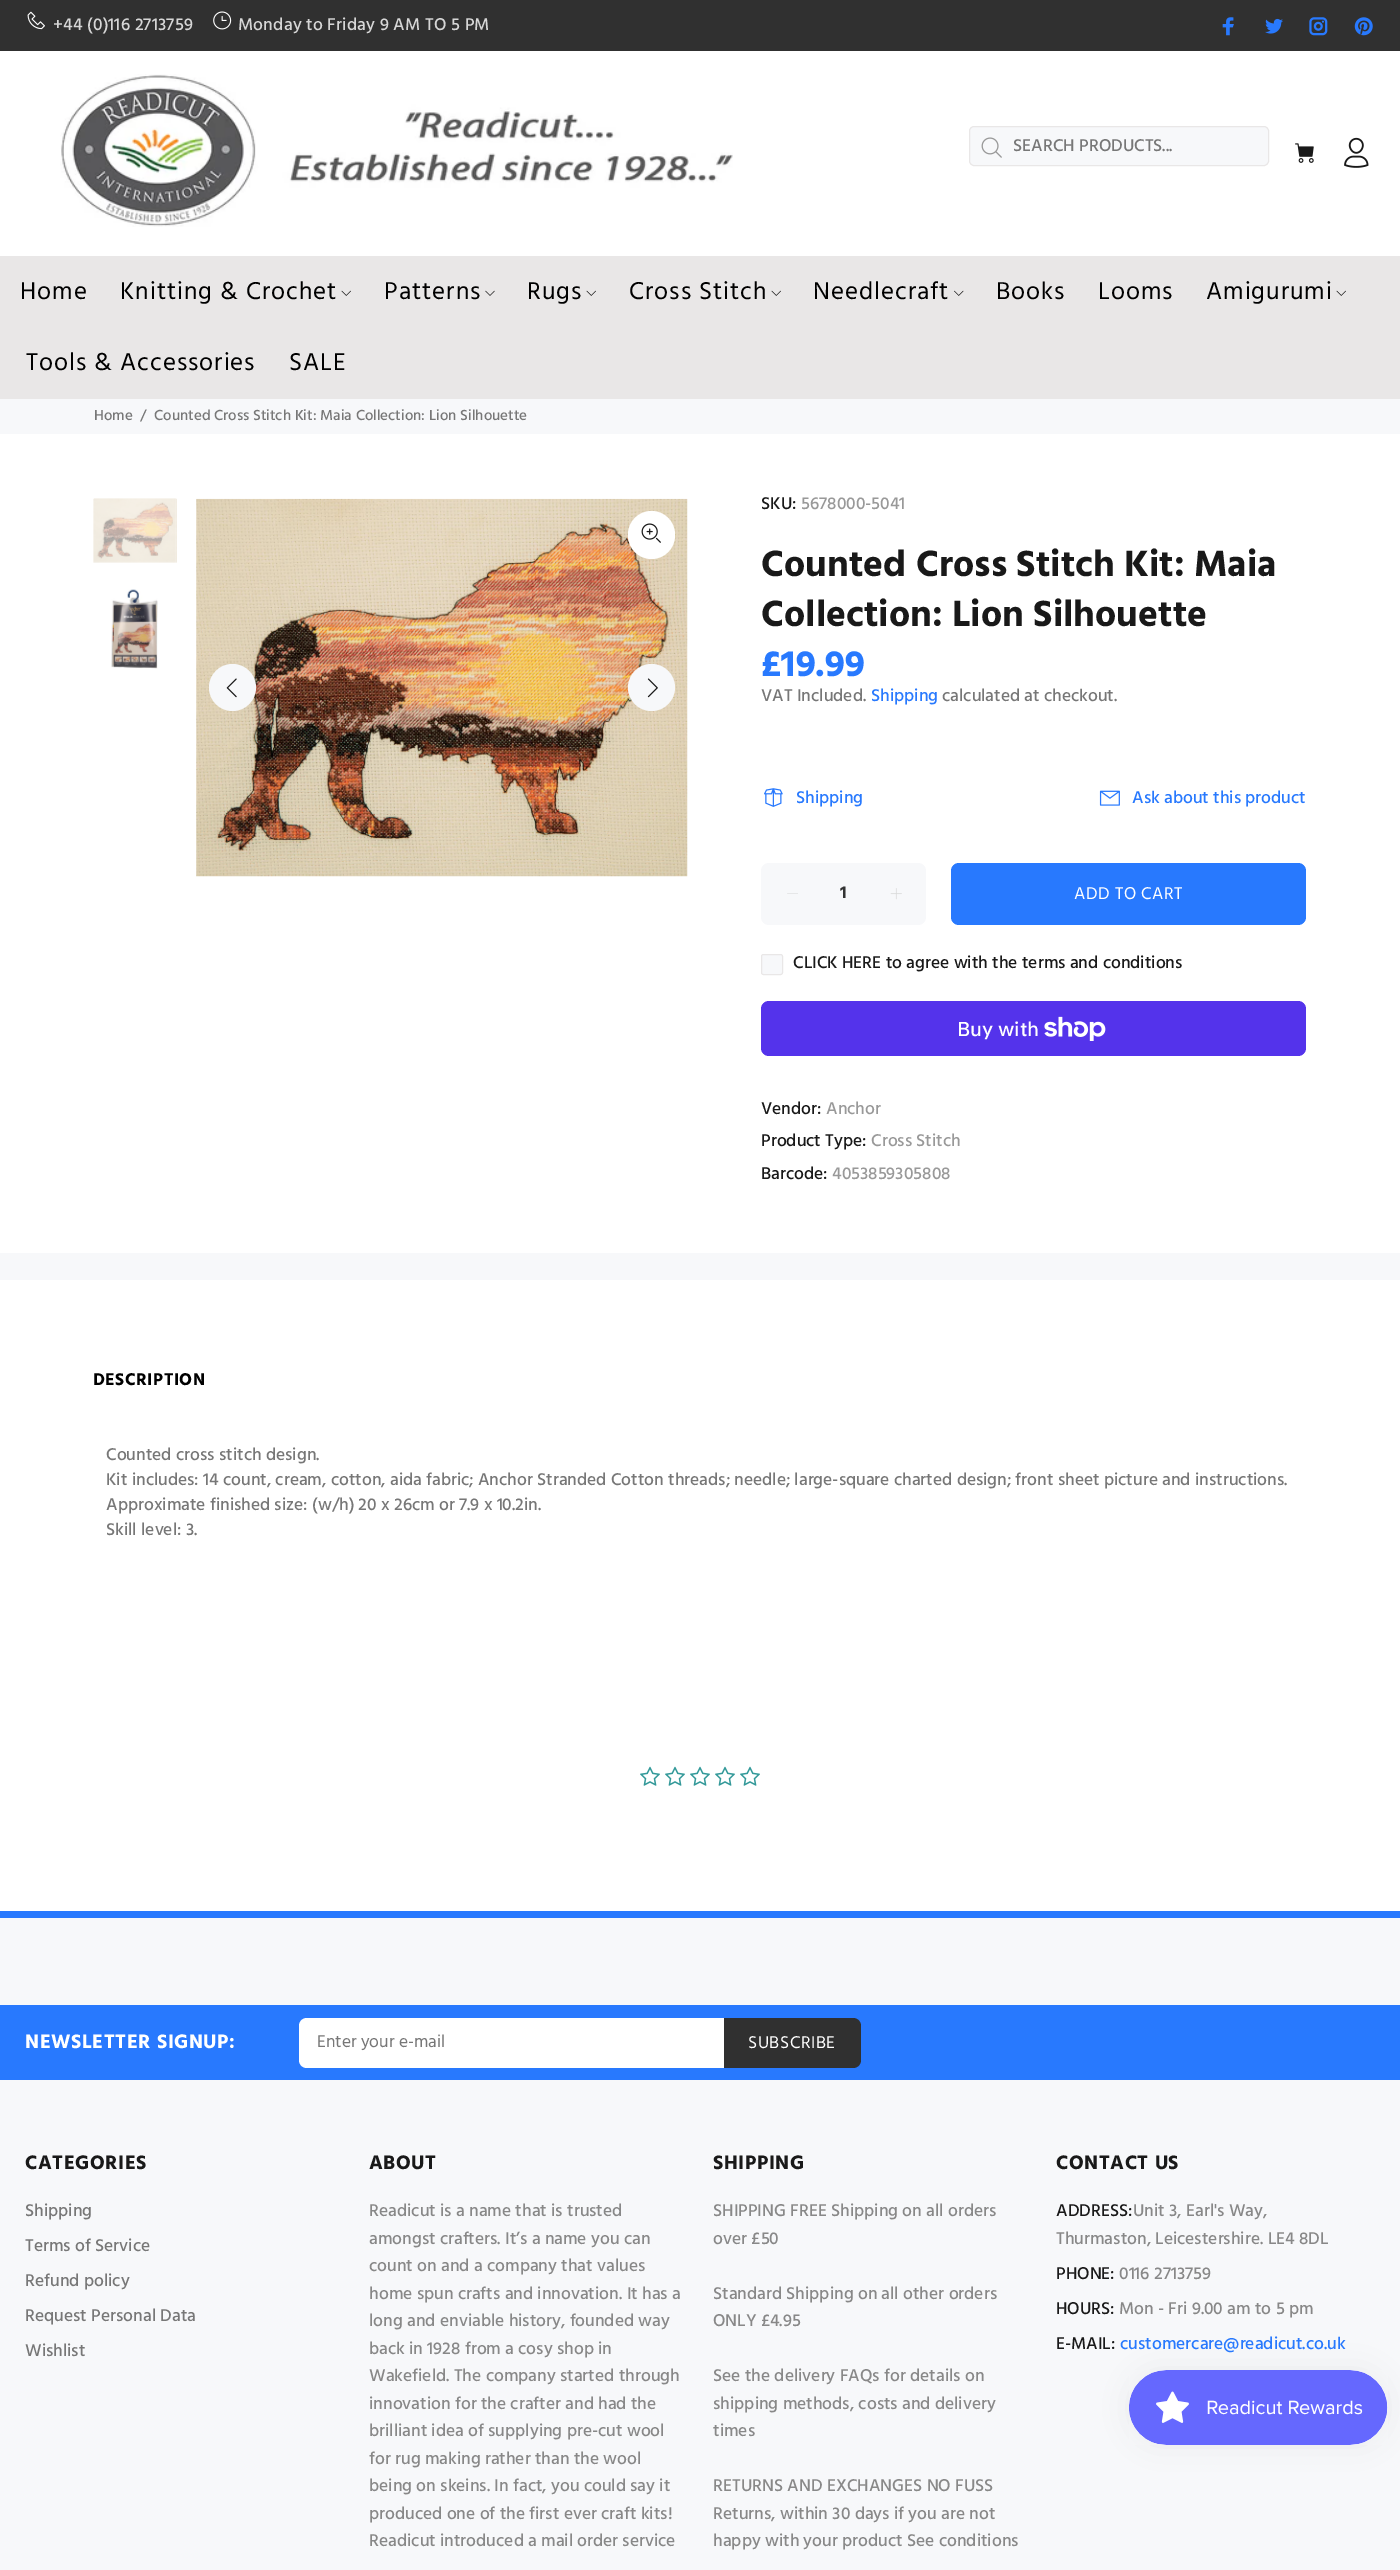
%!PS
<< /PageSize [1400 2570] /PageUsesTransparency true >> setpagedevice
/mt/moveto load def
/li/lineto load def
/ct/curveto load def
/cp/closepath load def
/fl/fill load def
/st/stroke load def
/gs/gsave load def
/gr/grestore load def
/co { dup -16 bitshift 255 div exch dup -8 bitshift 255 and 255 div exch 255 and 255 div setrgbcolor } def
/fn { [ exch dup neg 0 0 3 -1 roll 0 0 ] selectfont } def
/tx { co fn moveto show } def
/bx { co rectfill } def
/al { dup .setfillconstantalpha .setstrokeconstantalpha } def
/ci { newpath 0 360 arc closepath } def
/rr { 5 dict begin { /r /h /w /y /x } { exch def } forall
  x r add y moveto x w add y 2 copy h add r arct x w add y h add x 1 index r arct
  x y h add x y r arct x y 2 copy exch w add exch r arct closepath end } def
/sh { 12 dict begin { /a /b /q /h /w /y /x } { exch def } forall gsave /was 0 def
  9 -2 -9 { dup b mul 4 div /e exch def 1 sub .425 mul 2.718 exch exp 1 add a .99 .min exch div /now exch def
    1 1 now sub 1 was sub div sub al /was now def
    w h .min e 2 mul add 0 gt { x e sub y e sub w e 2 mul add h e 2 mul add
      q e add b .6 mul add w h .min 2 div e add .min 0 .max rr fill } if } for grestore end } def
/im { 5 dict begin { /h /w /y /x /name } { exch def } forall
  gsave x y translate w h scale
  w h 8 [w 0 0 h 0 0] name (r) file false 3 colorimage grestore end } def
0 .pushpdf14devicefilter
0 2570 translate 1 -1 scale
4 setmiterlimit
0 0 1400 2570 16#FFFFFF bx
0 0 1400 51 16#303030 bx
(media/1.raw) 27 11 18 19 im
(media/2.raw) 213 11 19 19 im
(media/3.raw) 1222 17 12 19 im
(media/4.raw) 1265 18 18 16 im
(media/5.raw) 1309 17 19 19 im
(media/6.raw) 1354 17 19 19 im
(media/7.raw) 60 74 673 153 im
16#F7F8FA co
969.5 126.5 299 39 4.5 rr gs fl gr
16#E9E7E7 co
st
(media/8.raw) 981 137 21 21 im
(media/9.raw) 1295 143 19 20 im
(media/10.raw) 1344 137 25 31 im
0 256 1400 143 16#E9E7E7 bx
(media/11.raw) 341 290 10 6 im
(media/12.raw) 485 290 10 6 im
(media/11.raw) 586 290 10 6 im
(media/11.raw) 771 290 10 6 im
(media/13.raw) 954 290 10 6 im
(media/11.raw) 1336 290 10 6 im
0 399 1400 35 16#F7F8FA bx
(media/14.raw) 93 498 84 65 im
(media/15.raw) 111 589 47 80 im
(media/16.raw) 196 498 492 379 im
16#FFFFFF co
628 511 47 48 23.5 rr fl
(media/17.raw) 641 523 20 20 im
16#F7F8FA co
232.5 687.5 23.5 ci fl
(media/18.raw) 226 678 11 20 im
651.5 687.5 23.5 ci fl
(media/19.raw) 647 678 11 20 im
(media/20.raw) 764 788 19 19 im
(media/21.raw) 1099 790 21 16 im
761 863 165 62 8 rr fl
16#D8D8D8 co
798 893.5 mt 798 894 li 787 894 li 787.5 893.5 li cp fl
(media/22.raw) 890 888 12 12 im
16#2879FE co
951 863 355 62 8 rr fl
16#F7F8FA co
761.5 954.5 21 20 2 rr gs fl gr
16#E9E7E7 co
st
16#5433EB co
761 1001 545 55 8 rr fl
(media/23.raw) 1044 1016 62 25 im
0 1253 1400 27 16#F7F8FA bx
(media/24.raw) 640 1766 20 20 im
(media/24.raw) 665 1766 20 20 im
(media/24.raw) 690 1766 20 20 im
(media/24.raw) 715 1766 20 20 im
(media/24.raw) 740 1766 20 20 im
0 1918 1400 652 16#F7F8FA bx
0 1911 1400 7 16#2879FE bx
0 2005 1400 75 16#2879FE bx
16#FFFFFF co
307 2018 mt 724 2018 li 724 2068 li 307 2068 li 302.5 2068 299 2064.5 299 2060 ct 299 2026 li 299 2021.5 302.5 2018 307 2018 ct cp fl
16#303030 co
724 2018 mt 853 2018 li 857.5 2018 861 2021.5 861 2026 ct 861 2060 li 861 2064.5 857.5 2068 853 2068 ct 724 2068 li cp fl
16#000000 co
1129 2370 259 75 37.5 15.5 .05 sh
(media/25.raw) 1129 2370 259 75 im
/Hind-Medium 17.5 fn
16#D6D6D6 co
53 30 mt .2 0 (+44 \(0\)116 2713759) ashow
238 30 mt .2 0 (Monday to Friday 9 AM TO 5 PM) ashow
(SEARCH PRODUCTS...) 1013 151 /Hind-Medium 17.5 16#777777 tx
/Hind-Regular 25 fn
16#000000 co
20 299 mt 1 0 (Home) ashow
120 299 mt 1 0 (Knitting & Crochet) ashow
384 299 mt 1 0 (Patterns) ashow
527 299 mt 1 0 (Rugs) ashow
629 299 mt 1 0 (Cross Stitch) ashow
813 299 mt 1 0 (Needlecraft) ashow
996 299 mt 1 0 (Books) ashow
1098 299 mt 1 0 (Looms) ashow
1206 299 mt 1 0 (Amigurumi) ashow
26 370 mt 1 0 (Tools & Accessories) ashow
289 370 mt 1 0 (SALE) ashow
(Home) 94 420 /Hind-Medium 15 16#777777 tx
(/) 140 420 /Hind-Medium 15 16#777777 tx
(Counted Cross Stitch Kit: Maia Collection: Lion Silhouette) 154 420 /Hind-Medium 15 16#777777 tx
(SKU:) 761 509 /Hind-Medium 17.5 16#191919 tx
(5678000-5041) 801 509 /Hind-Medium 17.5 16#999999 tx
/Hind-Bold 37.5 fn
16#191919 co
761 576 mt .05 0 (Counted Cross Stitch Kit: Maia) ashow
761 626 mt .05 0 (Collection: Lion Silhouette) ashow
(£19.99) 761 676 /Hind-Bold 37.5 16#2879FE tx
(VAT Included.) 761 701 /Hind-Medium 17.5 16#777777 tx
(Shipping) 871 701 /Hind-Medium 17.5 16#2879FE tx
(calculated at checkout.) 942 701 /Hind-Medium 17.5 16#777777 tx
(Shipping) 796 803 /Hind-Medium 17.5 16#2879FE tx
(Ask about this product) 1132 803 /Hind-Medium 17.5 16#2879FE tx
(1) 840 898 /Hind-Bold 17.5 16#333333 tx
/Hind-Regular 17.5 fn
16#FFFFFF co
1074 899 mt .5 0 (ADD TO CART) ashow
(CLICK HERE to agree with the terms and conditions) 793 968 /Hind-Medium 17.5 16#191919 tx
(Buy with) 957 1036 /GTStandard-Medium 20 16#FFFFFF tx
(Vendor:) 761 1114 /Hind-Medium 17.5 16#191919 tx
(Anchor) 826 1114 /Hind-Medium 17.5 16#999999 tx
(Product Type:) 761 1146 /Hind-Medium 17.5 16#191919 tx
(Cross Stitch) 871 1146 /Hind-Medium 17.5 16#999999 tx
(Barcode:) 761 1179 /Hind-Medium 17.5 16#191919 tx
(4053859305808) 832 1179 /Hind-Medium 17.5 16#999999 tx
/Hind-Bold 17.5 fn
16#000000 co
93 1385 mt .5 0 (DESCRIPTION) ashow
(Counted cross stitch design.) 106 1460 /Hind-Medium 17.5 16#777777 tx
(Kit includes: 14 count, cream, cotton, aida fabric; Anchor Stranded Cotton threads; needle; large-square charted design; front sheet picture and instructions.) 106 1485 /Hind-Medium 17.5 16#777777 tx
(Approximate finished size: \(w/h\) 20 x 26cm or 7.9 x 10.2in.) 106 1510 /Hind-Medium 17.5 16#777777 tx
(Skill level: 3.) 106 1535 /Hind-Medium 17.5 16#777777 tx
/Hind-Bold 20 fn
16#FFFFFF co
25 2048 mt .6 0 (NEWSLETTER SIGNUP:) ashow
(Enter your e-mail) 317 2047 /Hind-Regular 17.5 16#777777 tx
16#FFFFFF co
748 2048 mt .5 0 (SUBSCRIBE) ashow
/Hind-Bold 20 fn
16#191919 co
25 2169 mt .6 0 (CATEGORIES) ashow
(Shipping) 25 2216 /Hind-Medium 17.5 16#777777 tx
(Terms of Service) 25 2251 /Hind-Medium 17.5 16#777777 tx
(Refund policy) 25 2286 /Hind-Medium 17.5 16#777777 tx
(Request Personal Data) 25 2321 /Hind-Medium 17.5 16#777777 tx
(Wishlist) 25 2356 /Hind-Medium 17.5 16#777777 tx
/Hind-Bold 20 fn
16#191919 co
369 2169 mt .6 0 (ABOUT) ashow
(Readicut is a name that is trusted) 369 2216 /Hind-Medium 17.5 16#888888 tx
(amongst crafters. It’s a name you can) 369 2244 /Hind-Medium 17.5 16#888888 tx
(count on and a company that values) 369 2271 /Hind-Medium 17.5 16#888888 tx
(home spun crafts and innovation. It has a) 369 2299 /Hind-Medium 17.5 16#888888 tx
(long and enviable history, founded way) 369 2326 /Hind-Medium 17.5 16#888888 tx
(back in 1928 from a cosy shop in) 369 2354 /Hind-Medium 17.5 16#888888 tx
(Wakefield. The company started through) 369 2381 /Hind-Medium 17.5 16#888888 tx
(innovation for the crafter and had the) 369 2409 /Hind-Medium 17.5 16#888888 tx
(brilliant idea of supplying pre-cut wool) 369 2436 /Hind-Medium 17.5 16#888888 tx
(for rug making rather than the wool) 369 2464 /Hind-Medium 17.5 16#888888 tx
(being on skeins. In fact, you could say it) 369 2491 /Hind-Medium 17.5 16#888888 tx
(produced one of the first ever craft kits!) 369 2519 /Hind-Medium 17.5 16#888888 tx
(Readicut introduced a mail order service) 369 2546 /Hind-Medium 17.5 16#888888 tx
/Hind-Bold 20 fn
16#191919 co
713 2169 mt .6 0 (SHIPPING) ashow
(SHIPPING FREE Shipping on all orders) 713 2216 /Hind-Medium 17.5 16#888888 tx
(over £50) 713 2244 /Hind-Medium 17.5 16#888888 tx
(Standard Shipping on all other orders) 713 2299 /Hind-Medium 17.5 16#888888 tx
(ONLY £4.95) 713 2326 /Hind-Medium 17.5 16#888888 tx
(See the delivery FAQs for details on) 713 2381 /Hind-Medium 17.5 16#888888 tx
(shipping methods, costs and delivery) 713 2409 /Hind-Medium 17.5 16#888888 tx
(times) 713 2436 /Hind-Medium 17.5 16#888888 tx
(RETURNS AND EXCHANGES NO FUSS) 713 2491 /Hind-Medium 17.5 16#888888 tx
(Returns, within 30 days if you are not) 713 2519 /Hind-Medium 17.5 16#888888 tx
(happy with your product See conditions) 713 2546 /Hind-Medium 17.5 16#888888 tx
/Hind-Bold 20 fn
16#191919 co
1056 2169 mt .6 0 (CONTACT US) ashow
(ADDRESS:) 1056 2216 /Hind-Medium 17.5 16#191919 tx
(Unit 3, Earl's Way,) 1133 2216 /Hind-Medium 17.5 16#888888 tx
(Thurmaston, Leicestershire. LE4 8DL) 1056 2244 /Hind-Medium 17.5 16#888888 tx
(PHONE:) 1056 2279 /Hind-Medium 17.5 16#191919 tx
(0116 2713759) 1119 2279 /Hind-Medium 17.5 16#888888 tx
(HOURS:) 1056 2314 /Hind-Medium 17.5 16#191919 tx
(Mon - Fri 9.00 am to 5 pm) 1119 2314 /Hind-Medium 17.5 16#888888 tx
(E-MAIL:) 1056 2349 /Hind-Medium 17.5 16#191919 tx
(customercare@readicut.co.uk) 1120 2349 /Hind-Medium 17.5 16#2879FE tx
.poppdf14devicefilter showpage
